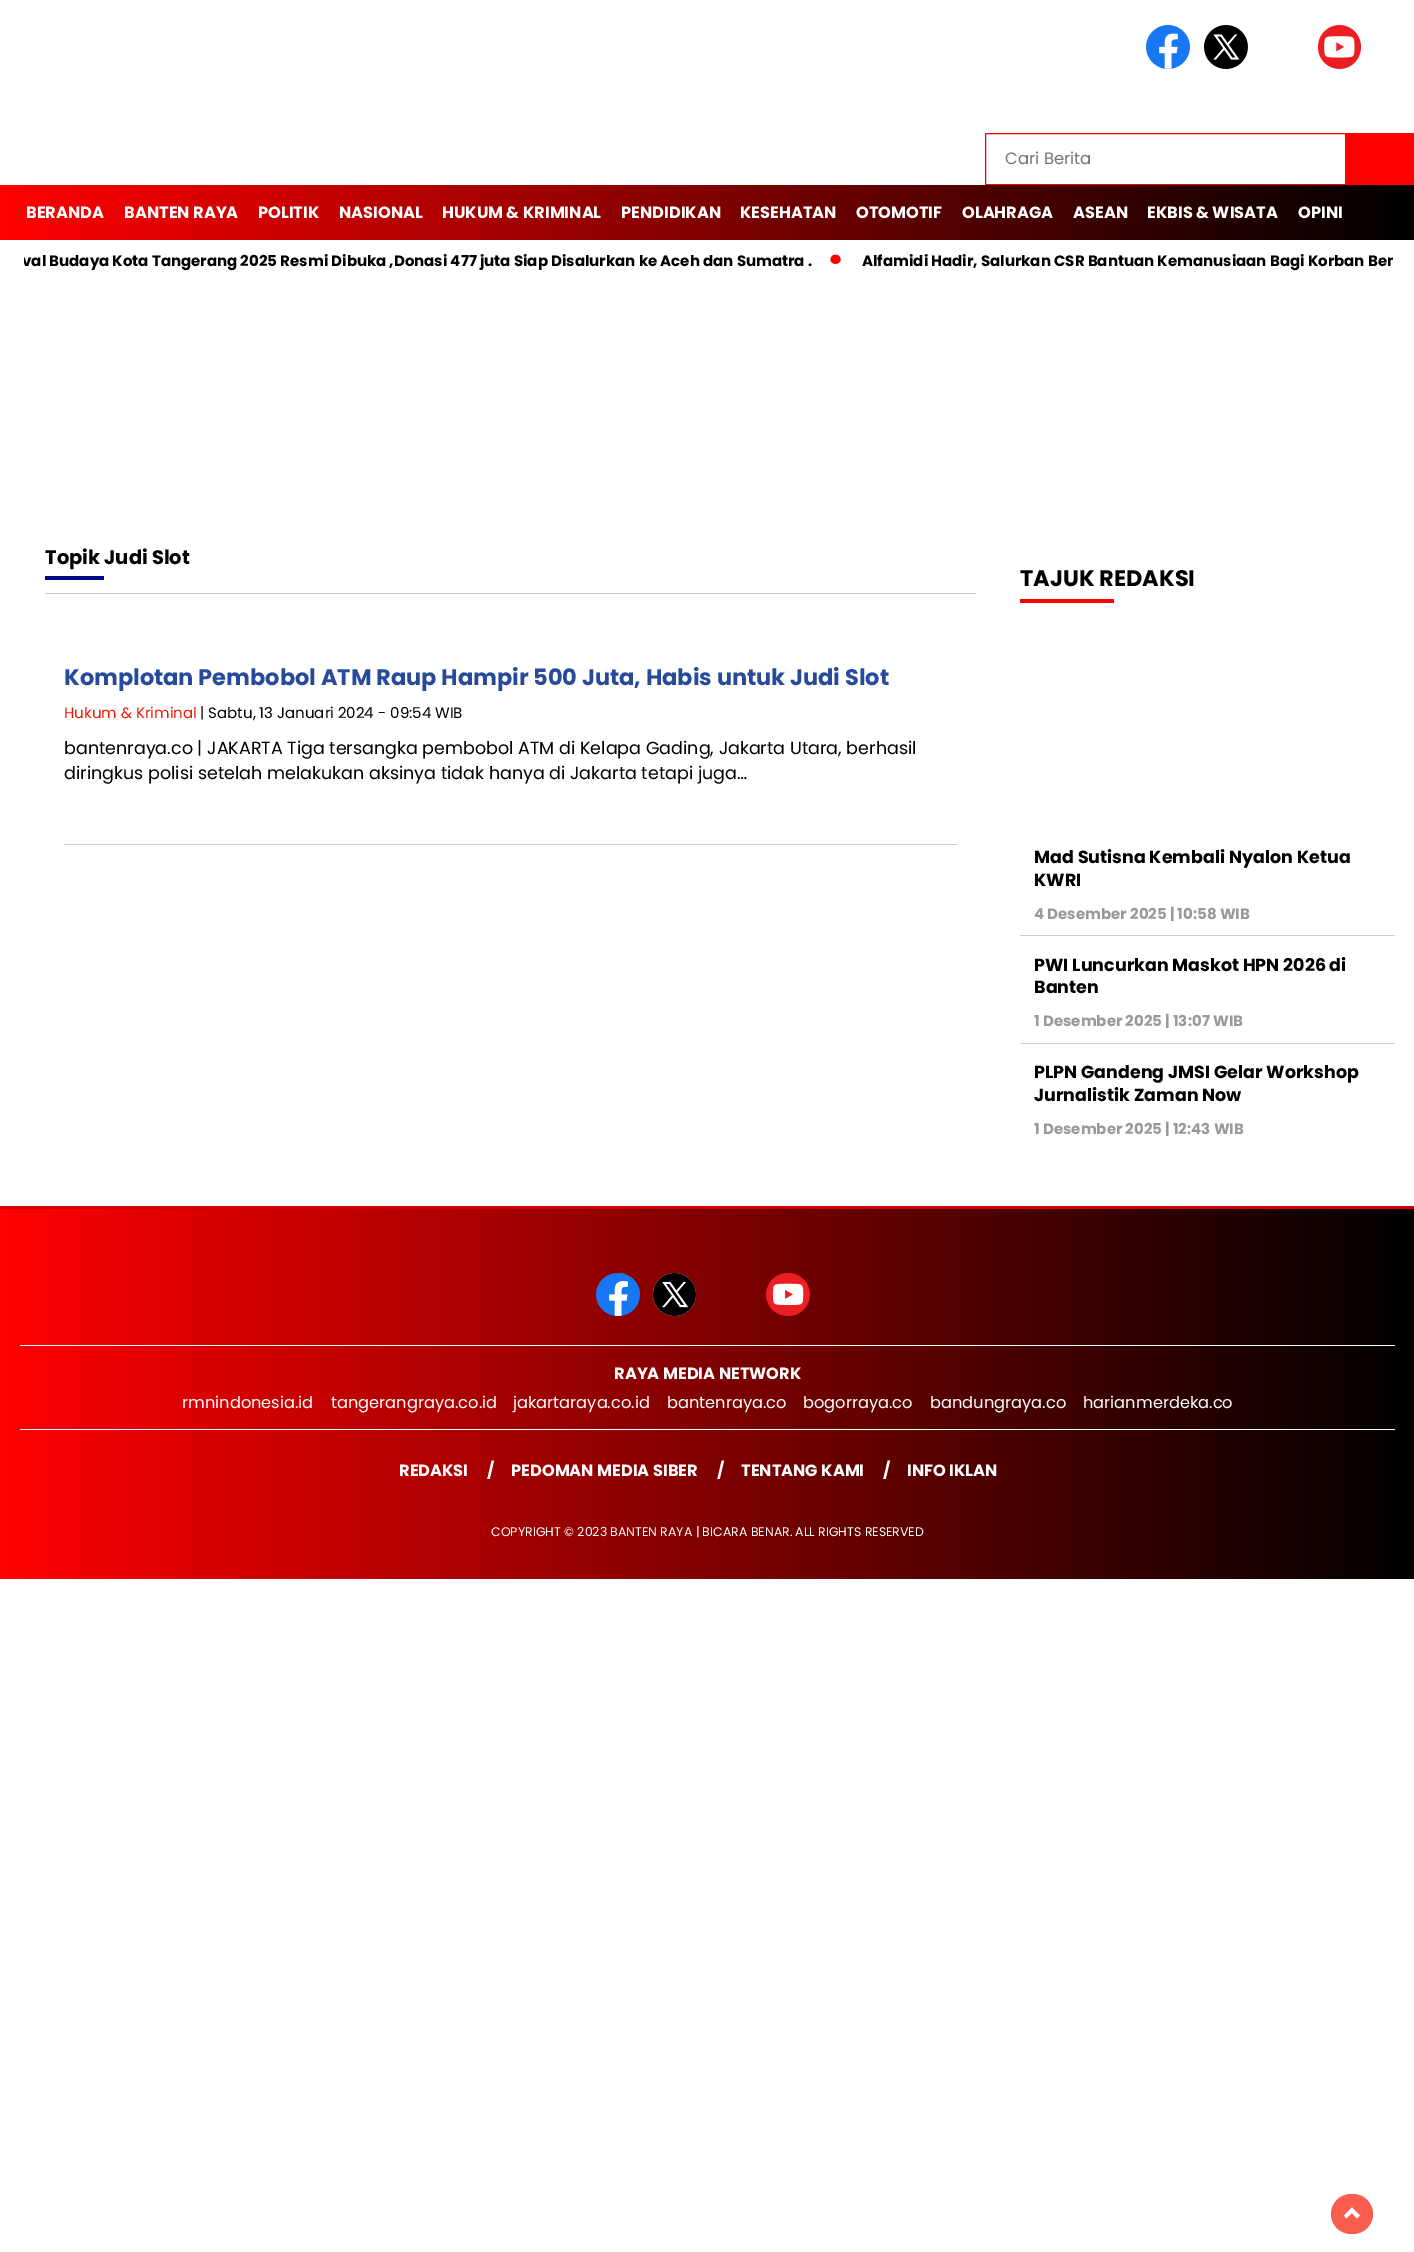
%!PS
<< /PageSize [1414 2252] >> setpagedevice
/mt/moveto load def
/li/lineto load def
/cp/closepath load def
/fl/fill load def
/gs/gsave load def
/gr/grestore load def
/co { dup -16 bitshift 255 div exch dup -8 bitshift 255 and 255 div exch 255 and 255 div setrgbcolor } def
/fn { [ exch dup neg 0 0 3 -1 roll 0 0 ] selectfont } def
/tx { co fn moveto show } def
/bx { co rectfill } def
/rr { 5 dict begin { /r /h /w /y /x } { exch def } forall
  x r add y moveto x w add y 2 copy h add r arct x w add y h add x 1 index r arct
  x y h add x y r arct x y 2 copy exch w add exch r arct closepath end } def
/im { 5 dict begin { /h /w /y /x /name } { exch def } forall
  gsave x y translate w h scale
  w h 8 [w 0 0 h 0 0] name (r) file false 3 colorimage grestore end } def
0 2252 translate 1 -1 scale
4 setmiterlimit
0 0 1414 2252 16#FFFFFF bx
(media/1.raw) 1146 25 44 44 im
(media/2.raw) 1204 25 44 44 im
(media/3.raw) 1318 25 43 44 im
16#FF0000 co
985.5 133.5 360 51 rectstroke
1346 133 68 52 16#FF0000 bx
gs 0 185 mt 1414 185 li 1414 240 li 0 240 li cp clip newpath
<< /ShadingType 2 /ColorSpace /DeviceRGB /Coords [0 213 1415 212] /Extend [true true] /Function << /FunctionType 2 /Domain [0 1] /C0 [1 0 0] /C1 [0 0 0] /N 1 >> >> shfill gr
45 593 931 1 16#CCCCCC bx
45 576 59 4 16#010A80 bx
64 844 894 1 16#CCCCCC bx
1020 599 94 4 16#FF0000 bx
1020 935 375 1 16#CCCCCC bx
1020 1043 375 1 16#CCCCCC bx
gs 0 1209 mt 1414 1209 li 1414 1579 li 0 1579 li cp clip newpath
<< /ShadingType 2 /ColorSpace /DeviceRGB /Coords [0 1394 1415 1394] /Extend [true true] /Function << /FunctionType 2 /Domain [0 1] /C0 [1 0 0] /C1 [0 0 0] /N 1 >> >> shfill gr
0 1206 1414 3 16#CC0000 bx
(media/4.raw) 596 1273 44 43 im
(media/5.raw) 653 1273 43 43 im
(media/6.raw) 766 1273 44 43 im
20 1345 1375 1 16#FFFFFF bx
20 1429 1375 1 16#FFFFFF bx
16#F85D4D co
1331 2194 42 40 20 rr fl
16#FFFFFF co
1346.5 2218.5 mt 1344 2215.5 li 1352 2207.5 li 1354.5 2210.5 li cp fl
1357 2218.5 mt 1349.5 2210.5 li 1352 2207.5 li 1360 2215.5 li cp fl
(Cari Berita) 1005 164 /Poppins-Regular 16.5 16#757575 tx
(BERANDA) 26 218 /Poppins-Bold 16.25 16#FFFFFF tx
(BANTEN RAYA) 124 218 /Poppins-Bold 16.25 16#FFFFFF tx
(POLITIK) 258 218 /Poppins-Bold 16.25 16#FFFFFF tx
(NASIONAL) 339 218 /Poppins-Bold 16.25 16#FFFFFF tx
(HUKUM & KRIMINAL) 442 218 /Poppins-Bold 16.25 16#FFFFFF tx
(PENDIDIKAN) 621 218 /Poppins-Bold 16.25 16#FFFFFF tx
(KESEHATAN) 740 218 /Poppins-Bold 16.25 16#FFFFFF tx
(OTOMOTIF) 856 218 /Poppins-Bold 16.25 16#FFFFFF tx
(OLAHRAGA) 962 218 /Poppins-Bold 16.25 16#FFFFFF tx
(ASEAN) 1073 218 /Poppins-Bold 16.25 16#FFFFFF tx
(EKBIS & WISATA) 1147 218 /Poppins-Bold 16.25 16#FFFFFF tx
(OPINI) 1298 218 /Poppins-Bold 16.25 16#FFFFFF tx
gs
24 240 1369 38 rectclip
(val Budaya Kota Tangerang 2025 Resmi Dibuka ,Donasi 477 juta Siap Disalurkan ke Aceh dan Sumatra .) 22 266 /Poppins-Bold 15 16#000000 tx
gr
(·) 828 275 /Poppins-Bold 50 16#FF0000 tx
gs
24 240 1369 38 rectclip
(Alfamidi Hadir, Salurkan CSR Bantuan Kemanusiaan Bagi Korban Ben) 862 266 /Poppins-Bold 15 16#000000 tx
gr
(Topik Judi Slot) 45 564 /Poppins-Bold 19.5 16#000000 tx
(Komplotan Pembobol ATM Raup Hampir 500 Juta, Habis untuk Judi Slot) 64 685 /Poppins-Bold 22.5 16#284A9A tx
(Hukum & Kriminal) 64 718 /Poppins-Regular 15 16#F51700 tx
(| Sabtu, 13 Januari 2024 - 09:54 WIB) 200 718 /Poppins-Regular 15 16#000000 tx
(bantenraya.co | JAKARTA Tiga tersangka pembobol ATM di Kelapa Gading, Jakarta Utara, berhasil) 64 754 /Poppins-Regular 17.5 16#000000 tx
(diringkus polisi setelah melakukan aksinya tidak hanya di Jakarta tetapi juga…) 64 779 /Poppins-Regular 17.5 16#000000 tx
(TAJUK REDAKSI) 1020 586 /Poppins-Bold 22.5 16#000000 tx
(Mad Sutisna Kembali Nyalon Ketua) 1034 863 /Poppins-Bold 17.5 16#000000 tx
(KWRI) 1034 886 /Poppins-Bold 17.5 16#000000 tx
(4 Desember 2025 | 10:58 WIB) 1034 919 /Poppins-Bold 15 16#999999 tx
(PWI Luncurkan Maskot HPN 2026 di) 1034 971 /Poppins-Bold 17.5 16#000000 tx
(Banten) 1034 993 /Poppins-Bold 17.5 16#000000 tx
(1 Desember 2025 | 13:07 WIB) 1034 1026 /Poppins-Bold 15 16#999999 tx
(PLPN Gandeng JMSI Gelar Workshop) 1034 1078 /Poppins-Bold 17.5 16#000000 tx
(Jurnalistik Zaman Now) 1034 1101 /Poppins-Bold 17.5 16#000000 tx
(1 Desember 2025 | 12:43 WIB) 1034 1134 /Poppins-Bold 15 16#999999 tx
(RAYA MEDIA NETWORK) 614 1379 /Poppins-Bold 16.25 16#FFFFFF tx
(rmnindonesia.id) 182 1408 /Poppins-Regular 16.25 16#FFFFFF tx
(tangerangraya.co.id) 331 1408 /Poppins-Regular 16.25 16#FFFFFF tx
(jakartaraya.co.id) 513 1408 /Poppins-Regular 16.25 16#FFFFFF tx
(bantenraya.co) 667 1408 /Poppins-Regular 16.25 16#FFFFFF tx
(bogorraya.co) 803 1408 /Poppins-Regular 16.25 16#FFFFFF tx
(bandungraya.co) 930 1408 /Poppins-Regular 16.25 16#FFFFFF tx
(harianmerdeka.co) 1083 1408 /Poppins-Regular 16.25 16#FFFFFF tx
(REDAKSI) 399 1476 /Poppins-Bold 16.25 16#FFFFFF tx
(/) 487 1476 /Poppins-Bold 16.25 16#FFFFFF tx
(PEDOMAN MEDIA SIBER) 511 1476 /Poppins-Bold 16.25 16#FFFFFF tx
(/) 717 1476 /Poppins-Bold 16.25 16#FFFFFF tx
(TENTANG KAMI) 741 1476 /Poppins-Bold 16.25 16#FFFFFF tx
(/) 883 1476 /Poppins-Bold 16.25 16#FFFFFF tx
(INFO IKLAN) 907 1476 /Poppins-Bold 16.25 16#FFFFFF tx
(COPYRIGHT © 2023 BANTEN RAYA | BICARA BENAR. ALL RIGHTS RESERVED) 491 1536 /Poppins-Regular 12.5 16#FFFFFF tx
showpage
